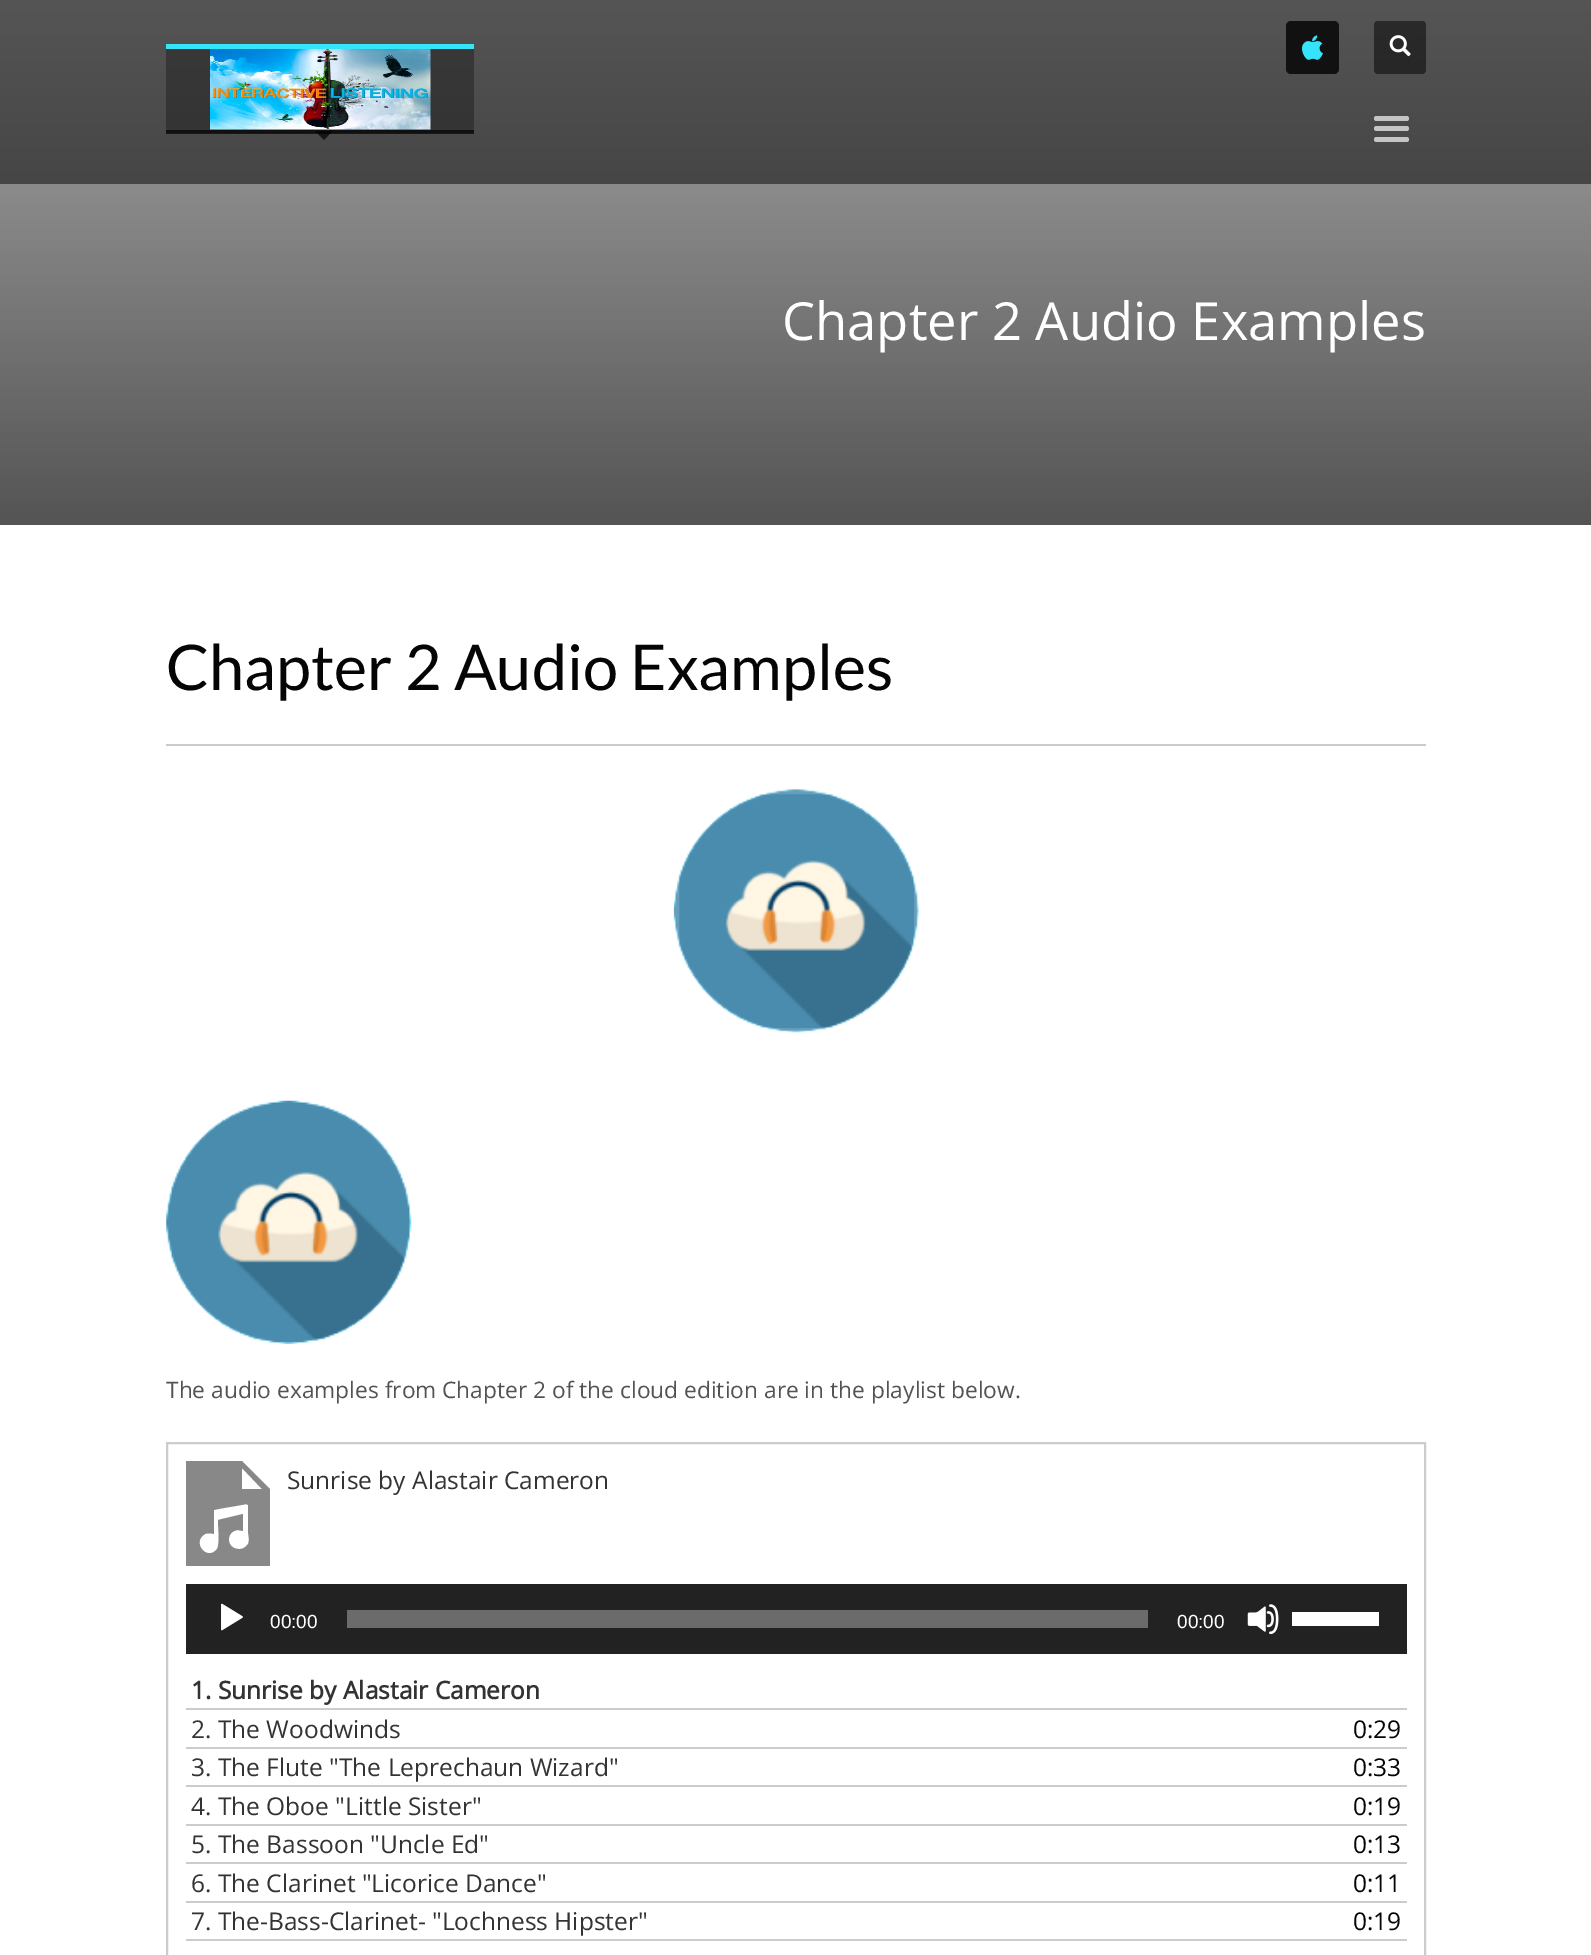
%!PS
<< /PageSize [1591 1955] /PageUsesTransparency true >> setpagedevice
/mt/moveto load def
/li/lineto load def
/ct/curveto load def
/cp/closepath load def
/fl/fill load def
/st/stroke load def
/gs/gsave load def
/gr/grestore load def
/lw/setlinewidth load def
/co { dup -16 bitshift 255 div exch dup -8 bitshift 255 and 255 div exch 255 and 255 div setrgbcolor } def
/fn { [ exch dup neg 0 0 3 -1 roll 0 0 ] selectfont } def
/tx { co fn moveto show } def
/bx { co rectfill } def
/al { dup .setfillconstantalpha .setstrokeconstantalpha } def
/rr { 5 dict begin { /r /h /w /y /x } { exch def } forall
  x r add y moveto x w add y 2 copy h add r arct x w add y h add x 1 index r arct
  x y h add x y r arct x y 2 copy exch w add exch r arct closepath end } def
/im { 5 dict begin { /h /w /y /x /name } { exch def } forall
  gsave x y translate w h scale
  w h 8 [w 0 0 h 0 0] name (r) file false 3 colorimage grestore end } def
0 .pushpdf14devicefilter
0 1955 translate 1 -1 scale
4 setmiterlimit
0 0 1591 1955 16#FFFFFF bx
gs 0 0 mt 1591 0 li 1591 184 li 0 184 li cp clip newpath
<< /ShadingType 2 /ColorSpace /DeviceRGB /Coords [796 0 796 525] /Extend [true true] /Function << /FunctionType 2 /Domain [0 1] /C0 [.333 .333 .333] /C1 [.165 .165 .165] /N 1 >> >> shfill gr
166 44 308 5 16#35E3FA bx
gs 166 49 mt 474 49 li 474 130 li 166 130 li cp clip newpath
<< /ShadingType 2 /ColorSpace /DeviceRGB /Coords [796 0 796 525] /Extend [true true] /Function << /FunctionType 2 /Domain [0 1] /C0 [.231 .231 .231] /C1 [.114 .114 .114] /N 1 >> >> shfill gr
(media/1.raw) 210 49 221 81 im
gs 166 133 mt 474 133 li 474 134 li 166 134 li cp clip newpath
<< /ShadingType 2 /ColorSpace /DeviceRGB /Coords [796 0 796 525] /Extend [true true] /Function << /FunctionType 2 /Domain [0 1] /C0 [.102 .102 .102] /C1 [.051 .051 .051] /N 1 >> >> shfill gr
gs 166 130 mt 474 130 li 474 133 li 166 133 li cp clip newpath
<< /ShadingType 2 /ColorSpace /DeviceRGB /Coords [796 0 796 525] /Extend [true true] /Function << /FunctionType 2 /Domain [0 1] /C0 [.071 .071 .071] /C1 [.035 .035 .035] /N 1 >> >> shfill gr
0.7 al
16#000000 co
315 131 mt 332.5 131 li 324 140 li cp fl
1 al
16#111111 co
1286 21 53 53 5 rr fl
(media/2.raw) 1302 35 21 25 im
0.5 al
16#000000 co
1374 21 52 53 4 rr fl
1 al
(media/3.raw) 1389 35 22 22 im
16#C5C5C5 co
1374 116 35 5 2.5 rr fl
1374 126 35 5 2.5 rr fl
1374 137 35 5 2.5 rr fl
gs 0 184 mt 1591 184 li 1591 525 li 0 525 li cp clip newpath
<< /ShadingType 2 /ColorSpace /DeviceRGB /Coords [796 0 796 525] /Extend [true true] /Function << /FunctionType 2 /Domain [0 1] /C0 [.663 .663 .663] /C1 [.329 .329 .329] /N 1 >> >> shfill gr
166 744 1260 2 16#CBCBCB bx
(media/4.raw) 673 789 246 244 im
0.15 al
16#FFFFFF co
5 lw
676.5 791.5 240 239 2.5 rr st
1 al
(media/5.raw) 166 1100 246 244 im
16#CCCCCC co
2 lw
167 1443 1258 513 rectstroke
gs
186 1461 84 105 rectclip
16#888888 co
242 1461 mt 186 1461 li 186 1573 li 270 1573 li 270 1489 li cp 248 1512 mt 248 1530 li 248 1535 250 1540 248 1544 ct 246 1547 243 1549 240 1549 ct 226 1550 225 1531 238 1530 ct 243 1531 li 243 1514 li 218 1520 li 218 1526 220 1545 217 1549 ct 207 1562 191 1542 205 1534 ct 207 1533 211 1533 214 1534 ct 214 1511 li 214 1510 li 216 1509 243 1505 246 1504 ct 248 1505 li cp 242 1489 mt 242 1468 li 262 1489 li cp fl
gr
186 1584 1221 70 16#222222 bx
(media/6.raw) 221 1603 22 28 im
347 1610 801 18 16#6B6B6B bx
(media/7.raw) 1247 1604 32 30 im
1292 1612 87 14 16#FFFFFF bx
186 1708 1221 2 16#CCCCCC bx
186 1747 1221 2 16#CCCCCC bx
186 1785 1221 2 16#CCCCCC bx
186 1824 1221 2 16#CCCCCC bx
186 1862 1221 2 16#CCCCCC bx
186 1901 1221 2 16#CCCCCC bx
186 1939 1221 2 16#CCCCCC bx
(Chapter 2 Audio Examples) 782 340 /OpenSans-Regular 52.5 16#FFFFFF tx
(Chapter 2 Audio Examples) 166 690 /Lato-Regular 63 16#050505 tx
(The audio examples from Chapter 2 of the cloud edition are in the playlist below.) 166 1398 /OpenSans-Regular 22.75 16#535353 tx
(Sunrise by Alastair Cameron) 287 1489 /OpenSans-Regular 24.5 16#333333 tx
(00:00) 270 1628 /LiberationSans-Regular 19 16#FFFFFF tx
(00:00) 1177 1628 /LiberationSans-Regular 19 16#FFFFFF tx
(1. Sunrise by Alastair Cameron) 191 1699 /OpenSans-Bold 24.5 16#333333 tx
(2. The Woodwinds) 191 1738 /OpenSans-Regular 24.5 16#333333 tx
(0:29) 1353 1738 /OpenSans-Regular 24.5 16#050505 tx
(3. The Flute "The Leprechaun Wizard") 191 1776 /OpenSans-Regular 24.5 16#333333 tx
(0:33) 1353 1776 /OpenSans-Regular 24.5 16#050505 tx
(4. The Oboe "Little Sister") 191 1815 /OpenSans-Regular 24.5 16#333333 tx
(0:19) 1353 1815 /OpenSans-Regular 24.5 16#050505 tx
(5. The Bassoon "Uncle Ed") 191 1853 /OpenSans-Regular 24.5 16#333333 tx
(0:13) 1353 1853 /OpenSans-Regular 24.5 16#050505 tx
(6. The Clarinet "Licorice Dance") 191 1892 /OpenSans-Regular 24.5 16#333333 tx
(0:11) 1353 1892 /OpenSans-Regular 24.5 16#050505 tx
(7. The-Bass-Clarinet- "Lochness Hipster") 191 1930 /OpenSans-Regular 24.5 16#333333 tx
(0:19) 1353 1930 /OpenSans-Regular 24.5 16#050505 tx
.poppdf14devicefilter showpage
